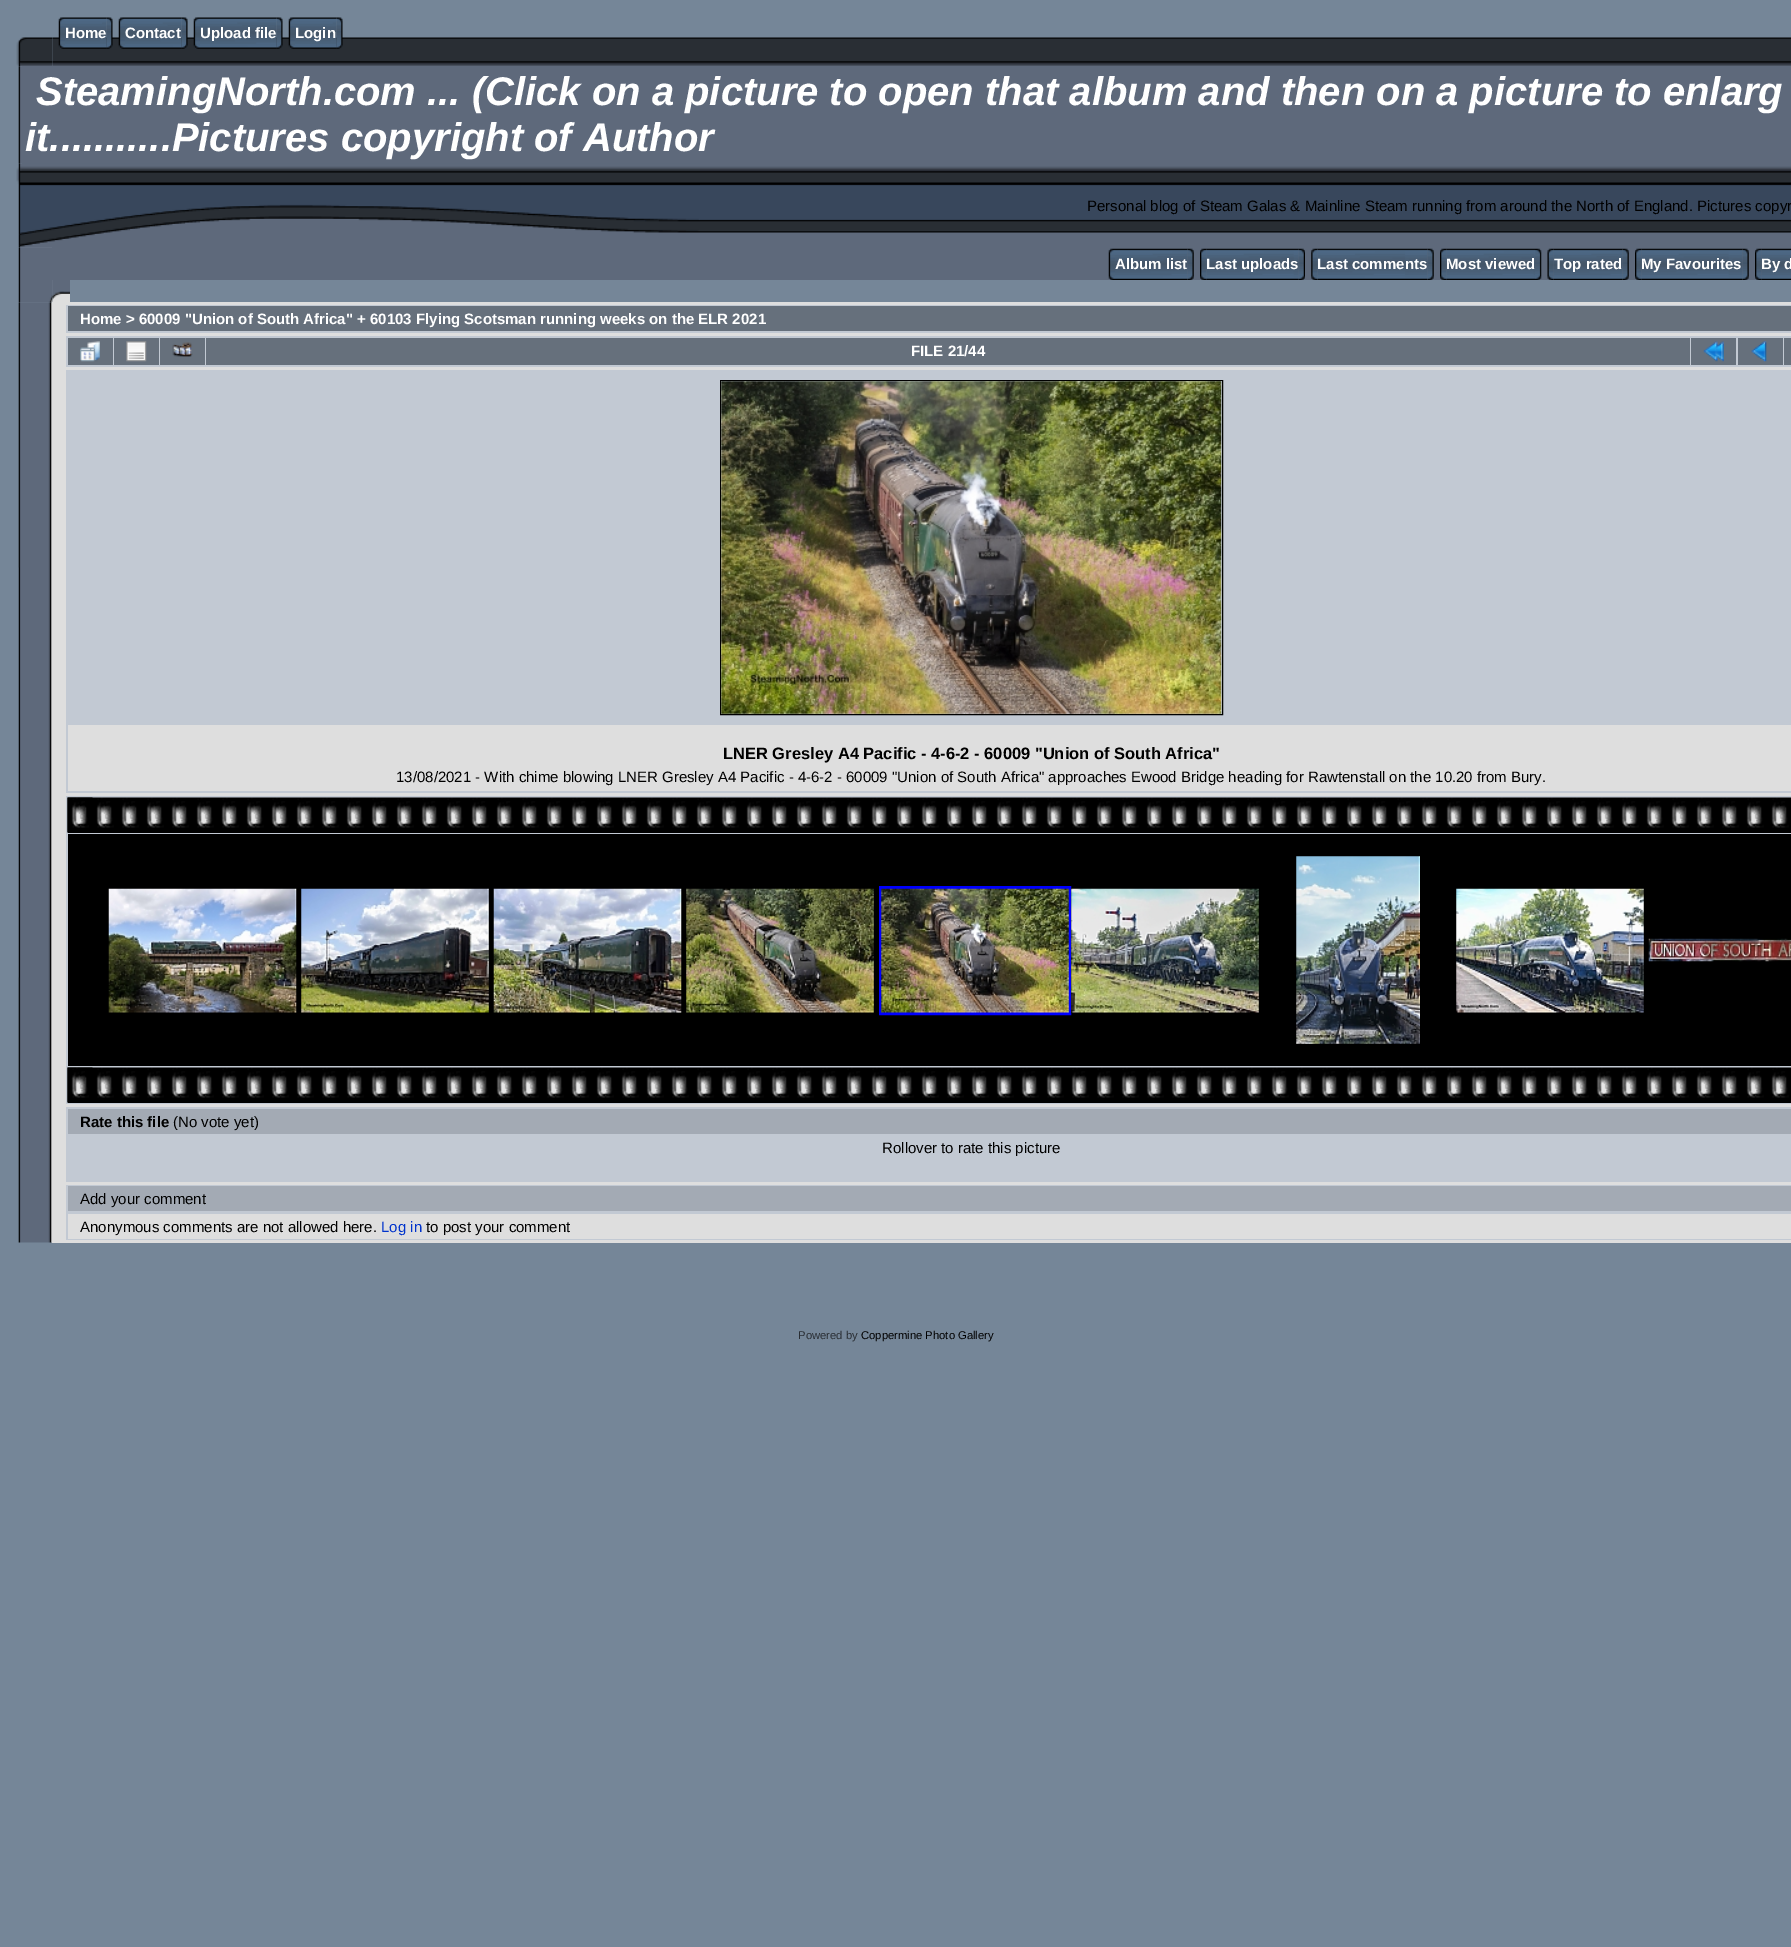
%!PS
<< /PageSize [1791 1947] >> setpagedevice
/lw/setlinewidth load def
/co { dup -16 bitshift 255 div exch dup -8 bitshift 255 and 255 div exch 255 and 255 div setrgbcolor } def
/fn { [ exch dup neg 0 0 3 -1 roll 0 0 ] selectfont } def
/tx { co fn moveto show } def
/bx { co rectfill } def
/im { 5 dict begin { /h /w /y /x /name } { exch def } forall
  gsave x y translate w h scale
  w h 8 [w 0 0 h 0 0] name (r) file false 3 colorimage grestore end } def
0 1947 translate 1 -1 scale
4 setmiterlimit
0 0 1791 1947 16#758698 bx
(media/12.raw) 16 37 37 30 im
(media/1.raw) 52 37 1739 29 im
(media/2.raw) 58 17 7 32 im
(media/3.raw) 65 17 42 32 im
(media/5.raw) 118 17 7 32 im
(media/6.raw) 125 17 57 32 im
(media/2.raw) 193 17 7 32 im
(media/8.raw) 200 17 77 32 im
(media/5.raw) 288 17 7 32 im
(media/10.raw) 295 17 42 32 im
(media/11.raw) 336 17 7 32 im
(media/13.raw) 18 66 4 98 im
22 66 1769 98 16#5E697B bx
(media/14.raw) 16 163 684 85 im
(media/15.raw) 700 164 1091 83 im
(media/16.raw) 18 247 34 33 im
52 247 1739 33 16#5E697B bx
(media/17.raw) 1108 248 7 32 im
(media/18.raw) 1115 248 73 32 im
(media/21.raw) 1206 248 93 32 im
(media/20.raw) 1200 248 7 32 im
(media/22.raw) 1298 248 7 32 im
(media/24.raw) 1317 248 111 32 im
(media/23.raw) 1311 248 7 32 im
(media/25.raw) 1427 248 7 32 im
(media/26.raw) 1446 248 89 32 im
(media/20.raw) 1440 248 7 32 im
(media/27.raw) 1535 248 7 32 im
(media/29.raw) 1553 248 70 32 im
(media/28.raw) 1547 248 7 32 im
(media/30.raw) 1622 248 7 32 im
(media/31.raw) 1641 248 102 32 im
(media/20.raw) 1635 248 7 32 im
(media/25.raw) 1742 248 7 32 im
(media/33.raw) 1761 248 30 32 im
(media/32.raw) 1755 248 7 32 im
(media/34.raw) 18 280 35 23 im
(media/35.raw) 52 280 18 22 im
(media/36.raw) 18 302 34 941 im
(media/37.raw) 18 567 2 411 im
52 302 1739 941 16#DEDEDE bx
66 305 1725 28 16#C2C9D3 bx
68 306 1723 25 16#66707C bx
66 336 1725 31 16#C2C9D3 bx
68 338 45 27 16#66707C bx
(media/38.raw) 80 341 20 21 im
114 338 45 27 16#66707C bx
(media/39.raw) 126 341 21 21 im
160 338 45 27 16#66707C bx
(media/40.raw) 172 342 21 15 im
206 338 1484 27 16#66707C bx
1691 338 45 27 16#66707C bx
(media/41.raw) 1703 341 21 21 im
1738 338 45 27 16#66707C bx
(media/42.raw) 1751 341 16 21 im
1784 338 7 27 16#66707C bx
66 370 1725 423 16#C2C9D3 bx
16#000000 co
720.5 380.5 502 334 rectstroke
(media/43.raw) 721 381 501 333 im
68 725 1723 66 16#DEDEDE bx
66 796 1725 308 16#C2C9D3 bx
68 832 1723 1 16#000000 bx
(media/44.raw) 67 797 1724 36 im
(media/45.raw) 67 797 26 36 im
68 834 1723 232 16#000000 bx
(media/46.raw) 108 888 189 125 im
(media/47.raw) 301 888 188 125 im
(media/48.raw) 493 888 189 125 im
(media/49.raw) 686 888 188 125 im
16#0000FF co
3 lw
880.5 887.5 189 126 rectstroke
(media/50.raw) 881 888 188 125 im
(media/51.raw) 1071 888 188 125 im
(media/52.raw) 1296 856 124 188 im
(media/53.raw) 1456 888 188 125 im
(media/54.raw) 1648 938 143 24 im
68 1102 1723 1 16#000000 bx
(media/55.raw) 67 1067 1724 36 im
(media/45.raw) 67 1067 26 36 im
66 1107 1725 75 16#C2C9D3 bx
68 1109 1723 25 16#A3AAB4 bx
66 1185 1725 55 16#C2C9D3 bx
68 1186 1723 25 16#A3AAB4 bx
68 1214 1723 25 16#DEDEDE bx
(Home) 65 38 /LiberationSans-Bold 15 16#FFFFFF tx
(media/4.raw) 106 17 7 32 im
(Contact) 125 38 /LiberationSans-Bold 15 16#FFFFFF tx
(media/7.raw) 181 17 7 32 im
(Upload file) 200 38 /LiberationSans-Bold 15 16#FFFFFF tx
(media/9.raw) 276 17 7 32 im
(Login) 295 38 /LiberationSans-Bold 15 16#FFFFFF tx
(SteamingNorth.com ... \(Click on a picture to open that album and then on a picture to enlarg) 36 105 /LiberationSans-BoldItalic 40 16#FFFFFF tx
(it...........Pictures copyright of Author) 25 151 /LiberationSans-BoldItalic 40 16#FFFFFF tx
(Personal blog of Steam Galas & Mainline Steam running from around the North of England. Pictures copyr) 1087 211 /LiberationSans-Regular 15 16#000000 tx
(Album list) 1115 269 /LiberationSans-Bold 15 16#FFFFFF tx
(media/19.raw) 1187 248 7 32 im
(Last uploads) 1206 269 /LiberationSans-Bold 15 16#FFFFFF tx
(Last comments) 1317 269 /LiberationSans-Bold 15 16#FFFFFF tx
(Most viewed) 1446 269 /LiberationSans-Bold 15 16#FFFFFF tx
(Top rated) 1554 269 /LiberationSans-Bold 15 16#FFFFFF tx
(My Favourites) 1641 269 /LiberationSans-Bold 15 16#FFFFFF tx
(By d) 1761 269 /LiberationSans-Bold 15 16#FFFFFF tx
(Home > 60009 "Union of South Africa" + 60103 Flying Scotsman running weeks on the ELR 2021) 80 324 /LiberationSans-Bold 15 16#FFFFFF tx
(FILE 21/44) 911 356 /LiberationSans-Bold 15 16#FFFFFF tx
(LNER Gresley A4 Pacific - 4-6-2 - 60009 "Union of South Africa") 723 759 /LiberationSans-Bold 16.5 16#000000 tx
(13/08/2021 - With chime blowing LNER Gresley A4 Pacific - 4-6-2 - 60009 "Union of South Africa" approaches Ewood Bridge heading for Rawtenstall on the 10.20 from Bury.) 396 782 /LiberationSans-Regular 15 16#000000 tx
(Rate this file) 80 1127 /LiberationSans-Bold 15 16#000000 tx
(\(No vote yet\)) 173 1127 /LiberationSans-Regular 15 16#000000 tx
(Rollover to rate this picture) 882 1153 /LiberationSans-Regular 15 16#000000 tx
(Add your comment) 80 1204 /LiberationSans-Regular 15 16#000000 tx
(Anonymous comments are not allowed here.) 80 1232 /LiberationSans-Regular 15 16#000000 tx
(Log in) 381 1232 /LiberationSans-Regular 15 16#0033CC tx
(to post your comment) 426 1232 /LiberationSans-Regular 15 16#000000 tx
(Powered by) 798 1339 /LiberationSans-Regular 11.25 16#292E34 tx
(Coppermine Photo Gallery) 861 1339 /LiberationSans-Regular 11.25 16#000000 tx
showpage
